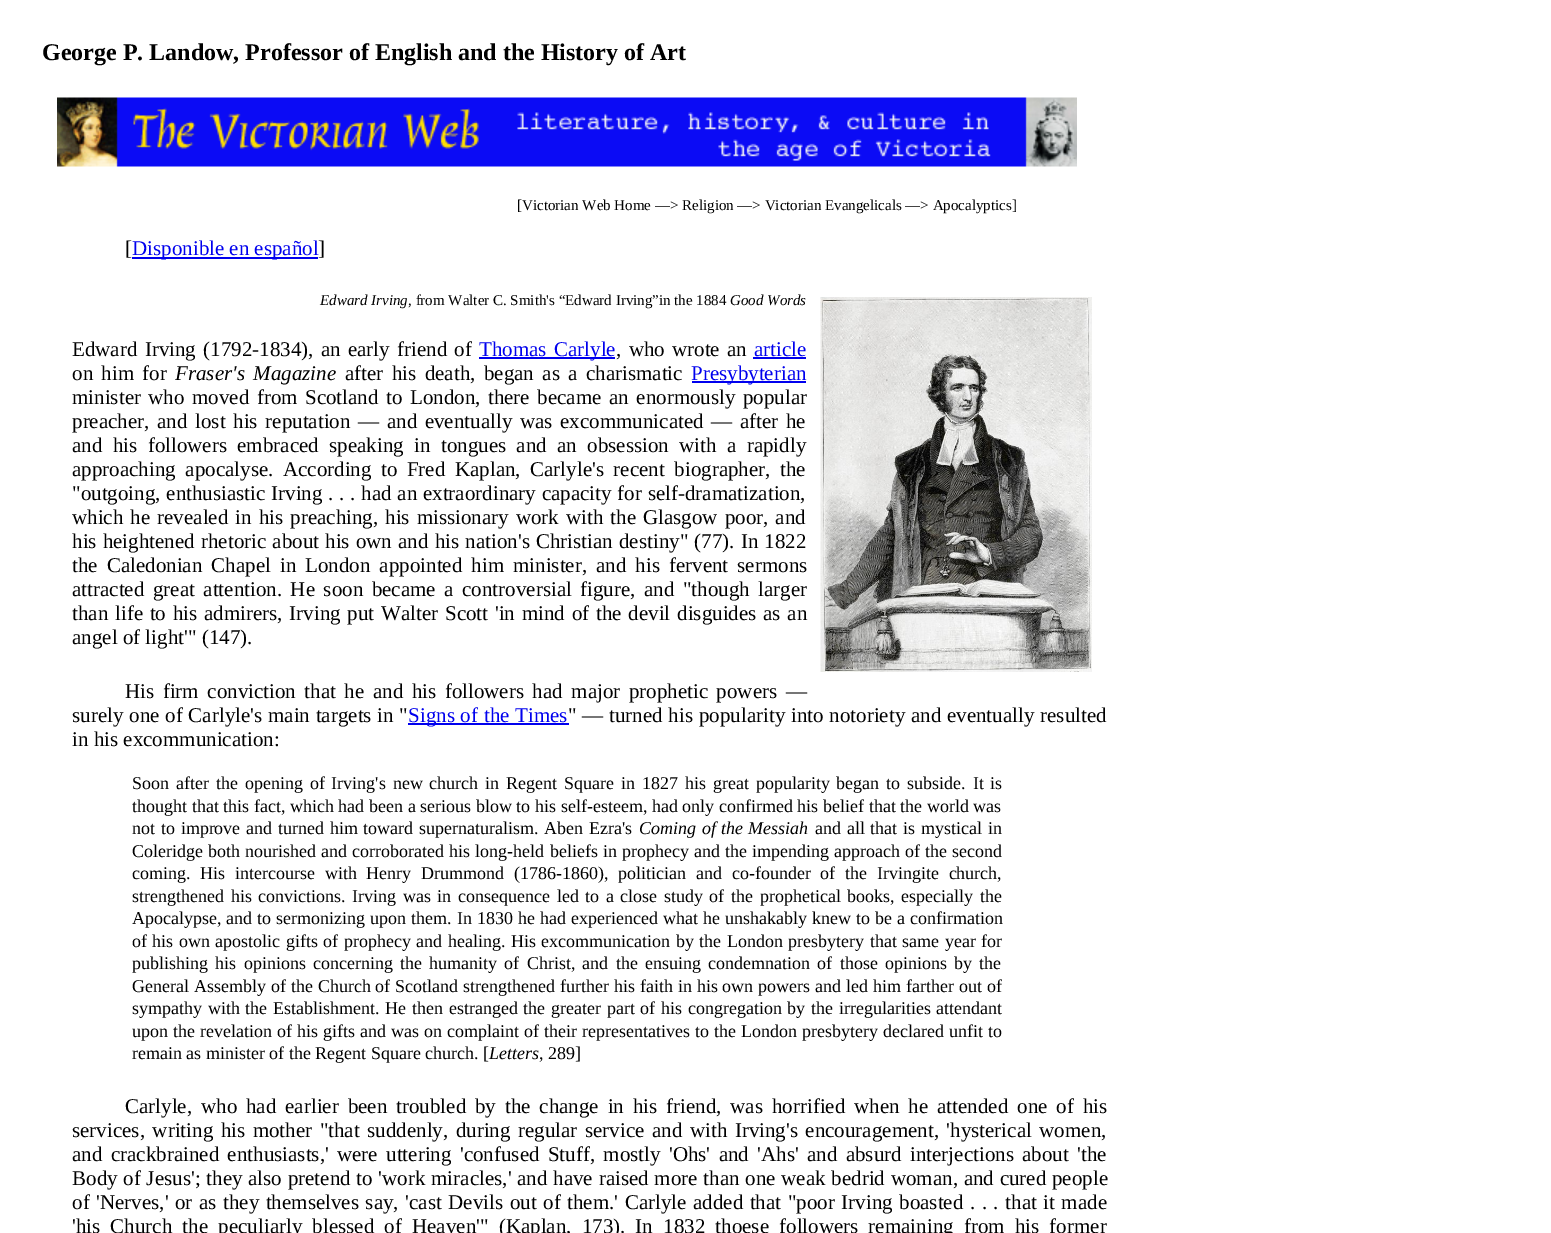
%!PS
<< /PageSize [1551 1233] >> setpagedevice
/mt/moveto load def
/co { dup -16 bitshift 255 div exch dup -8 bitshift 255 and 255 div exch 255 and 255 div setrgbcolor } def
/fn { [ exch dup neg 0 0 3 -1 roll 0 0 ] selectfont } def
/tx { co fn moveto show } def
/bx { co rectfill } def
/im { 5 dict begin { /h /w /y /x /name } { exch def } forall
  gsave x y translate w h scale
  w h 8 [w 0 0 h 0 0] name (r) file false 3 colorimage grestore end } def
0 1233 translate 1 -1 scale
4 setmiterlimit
0 0 1551 1233 16#FFFFFF bx
(media/1.raw) 57 97 1020 70 im
132 257 186 2 16#0000EE bx
(media/2.raw) 820 297 272 375 im
479 357 136 2 16#0000EE bx
753 357 53 2 16#0000EE bx
692 381 114 2 16#0000EE bx
408 723 161 2 16#0000EE bx
(George P. Landow, Professor of English and the History of Art) 42 60 /LiberationSerif-Bold 24 16#000000 tx
([Victorian Web Home —> Religion —> Victorian Evangelicals —> Apocalyptics]) 517 210 /LiberationSerif-Regular 15 16#000000 tx
([) 125 255 /LiberationSerif-Regular 21 16#000000 tx
(Disponible en español) 132 255 /LiberationSerif-Regular 21 16#0000EE tx
(]) 318 255 /LiberationSerif-Regular 21 16#000000 tx
(Edward Irving) 320 305 /LiberationSerif-Italic 15 16#000000 tx
(, from Walter C. Smith's “Edward Irving”in the 1884) 408 305 /LiberationSerif-Regular 15 16#000000 tx
(Good Words) 730 305 /LiberationSerif-Italic 15 16#000000 tx
/LiberationSerif-Regular 21 fn
72 356 mt 2 0 32 (Edward Irving \(1792-1834\), an early friend of) widthshow
16#0000EE co
479 356 mt 2 0 32 (Thomas Carlyle) widthshow
16#000000 co
616 356 mt 2 0 32 (, who wrote an) widthshow
(article) 754 356 /LiberationSerif-Regular 21 16#0000EE tx
16#000000 co
72 380 mt 3.1 0 32 (on him for) widthshow
/LiberationSerif-Italic 21 fn
175 380 mt 3.1 0 32 (Fraser's Magazine) widthshow
/LiberationSerif-Regular 21 fn
345 380 mt 3.1 0 32 (after his death, began as a charismatic) widthshow
(Presybyterian) 691 380 /LiberationSerif-Regular 21 16#0000EE tx
16#000000 co
72 404 mt 2.25 0 32 (minister who moved from Scotland to London, there became an enormously popular) widthshow
72 428 mt 2.4 0 32 (preacher, and lost his reputation — and eventually was excommunicated — after he) widthshow
72 452 mt 5.1 0 32 (and his followers embraced speaking in tongues and an obsession with a rapidly) widthshow
72 476 mt 4.25 0 32 (approaching apocalyse. According to Fred Kaplan, Carlyle's recent biographer, the) widthshow
72 500 mt .5 0 32 ("outgoing, enthusiastic Irving . . . had an extraordinary capacity for self-dramatization,) widthshow
72 524 mt 1.75 0 32 (which he revealed in his preaching, his missionary work with the Glasgow poor, and) widthshow
72 548 mt .9 0 32 (his heightened rhetoric about his own and his nation's Christian destiny" \(77\). In 1822) widthshow
72 572 mt 3.75 0 32 (the Caledonian Chapel in London appointed him minister, and his fervent sermons) widthshow
72 596 mt 3.25 0 32 (attracted great attention. He soon became a controversial figure, and "though larger) widthshow
72 620 mt 1.5 0 32 (than life to his admirers, Irving put Walter Scott 'in mind of the devil disguides as an) widthshow
(angel of light'" \(147\).) 72 644 /LiberationSerif-Regular 21 16#000000 tx
125 698 mt 3.25 0 32 (His firm conviction that he and his followers had major prophetic powers —) widthshow
72 722 mt .5 0 32 (surely one of Carlyle's main targets in ") widthshow
16#0000EE co
408 722 mt .5 0 32 (Signs of the Times) widthshow
16#000000 co
568 722 mt .5 0 32 (" — turned his popularity into notoriety and eventually resulted) widthshow
(in his excommunication:) 72 746 /LiberationSerif-Regular 21 16#000000 tx
/LiberationSerif-Regular 18 fn
132 789 mt 2.4 0 32 (Soon after the opening of Irving's new church in Regent Square in 1827 his great popularity began to subside. It is) widthshow
132 812 mt .1 0 32 (thought that this fact, which had been a serious blow to his self-esteem, had only confirmed his belief that the world was) widthshow
132 834 mt 1.25 0 32 (not to improve and turned him toward supernaturalism. Aben Ezra's) widthshow
/LiberationSerif-Italic 18 fn
639 834 mt 1 0 32 (Coming of the Messiah) widthshow
/LiberationSerif-Regular 18 fn
815 834 mt 1.25 0 32 (and all that is mystical in) widthshow
132 857 mt .6 0 32 (Coleridge both nourished and corroborated his long-held beliefs in prophecy and the impending approach of the second) widthshow
132 879 mt 5.25 0 32 (coming. His intercourse with Henry Drummond \(1786-1860\), politician and co-founder of the Irvingite church,) widthshow
132 902 mt 2.1 0 32 (strengthened his convictions. Irving was in consequence led to a close study of the prophetical books, especially the) widthshow
132 924 mt .5 0 32 (Apocalypse, and to sermonizing upon them. In 1830 he had experienced what he unshakably knew to be a confirmation) widthshow
132 947 mt 1 0 32 (of his own apostolic gifts of prophecy and healing. His excommunication by the London presbytery that same year for) widthshow
132 969 mt 2.75 0 32 (publishing his opinions concerning the humanity of Christ, and the ensuing condemnation of those opinions by the) widthshow
132 992 mt .4 0 32 (General Assembly of the Church of Scotland strengthened further his faith in his own powers and led him farther out of) widthshow
132 1014 mt 1.2 0 32 (sympathy with the Establishment. He then estranged the greater part of his congregation by the irregularities attendant) widthshow
132 1037 mt .5 0 32 (upon the revelation of his gifts and was on complaint of their representatives to the London presbytery declared unfit to) widthshow
(remain as minister of the Regent Square church. [) 132 1059 /LiberationSerif-Regular 18 16#000000 tx
(Letters) 489 1059 /LiberationSerif-Italic 18 16#000000 tx
(, 289]) 539 1059 /LiberationSerif-Regular 18 16#000000 tx
/LiberationSerif-Regular 21 fn
125 1113 mt 3.6 0 32 (Carlyle, who had earlier been troubled by the change in his friend, was horrified when he attended one of his) widthshow
72 1137 mt 2.25 0 32 (services, writing his mother "that suddenly, during regular service and with Irving's encouragement, 'hysterical women,) widthshow
72 1161 mt 3.1 0 32 (and crackbrained enthusiasts,' were uttering 'confused Stuff, mostly 'Ohs' and 'Ahs' and absurd interjections about 'the) widthshow
72 1185 mt .5 0 32 (Body of Jesus'; they also pretend to 'work miracles,' and have raised more than one weak bedrid woman, and cured people) widthshow
72 1209 mt 1.3 0 32 (of 'Nerves,' or as they themselves say, 'cast Devils out of them.' Carlyle added that "poor Irving boasted . . . that it made) widthshow
72 1233 mt 4.9 0 32 ('his Church the peculiarly blessed of Heaven'" \(Kaplan, 173\). In 1832 thoese followers remaining from his former) widthshow
showpage
